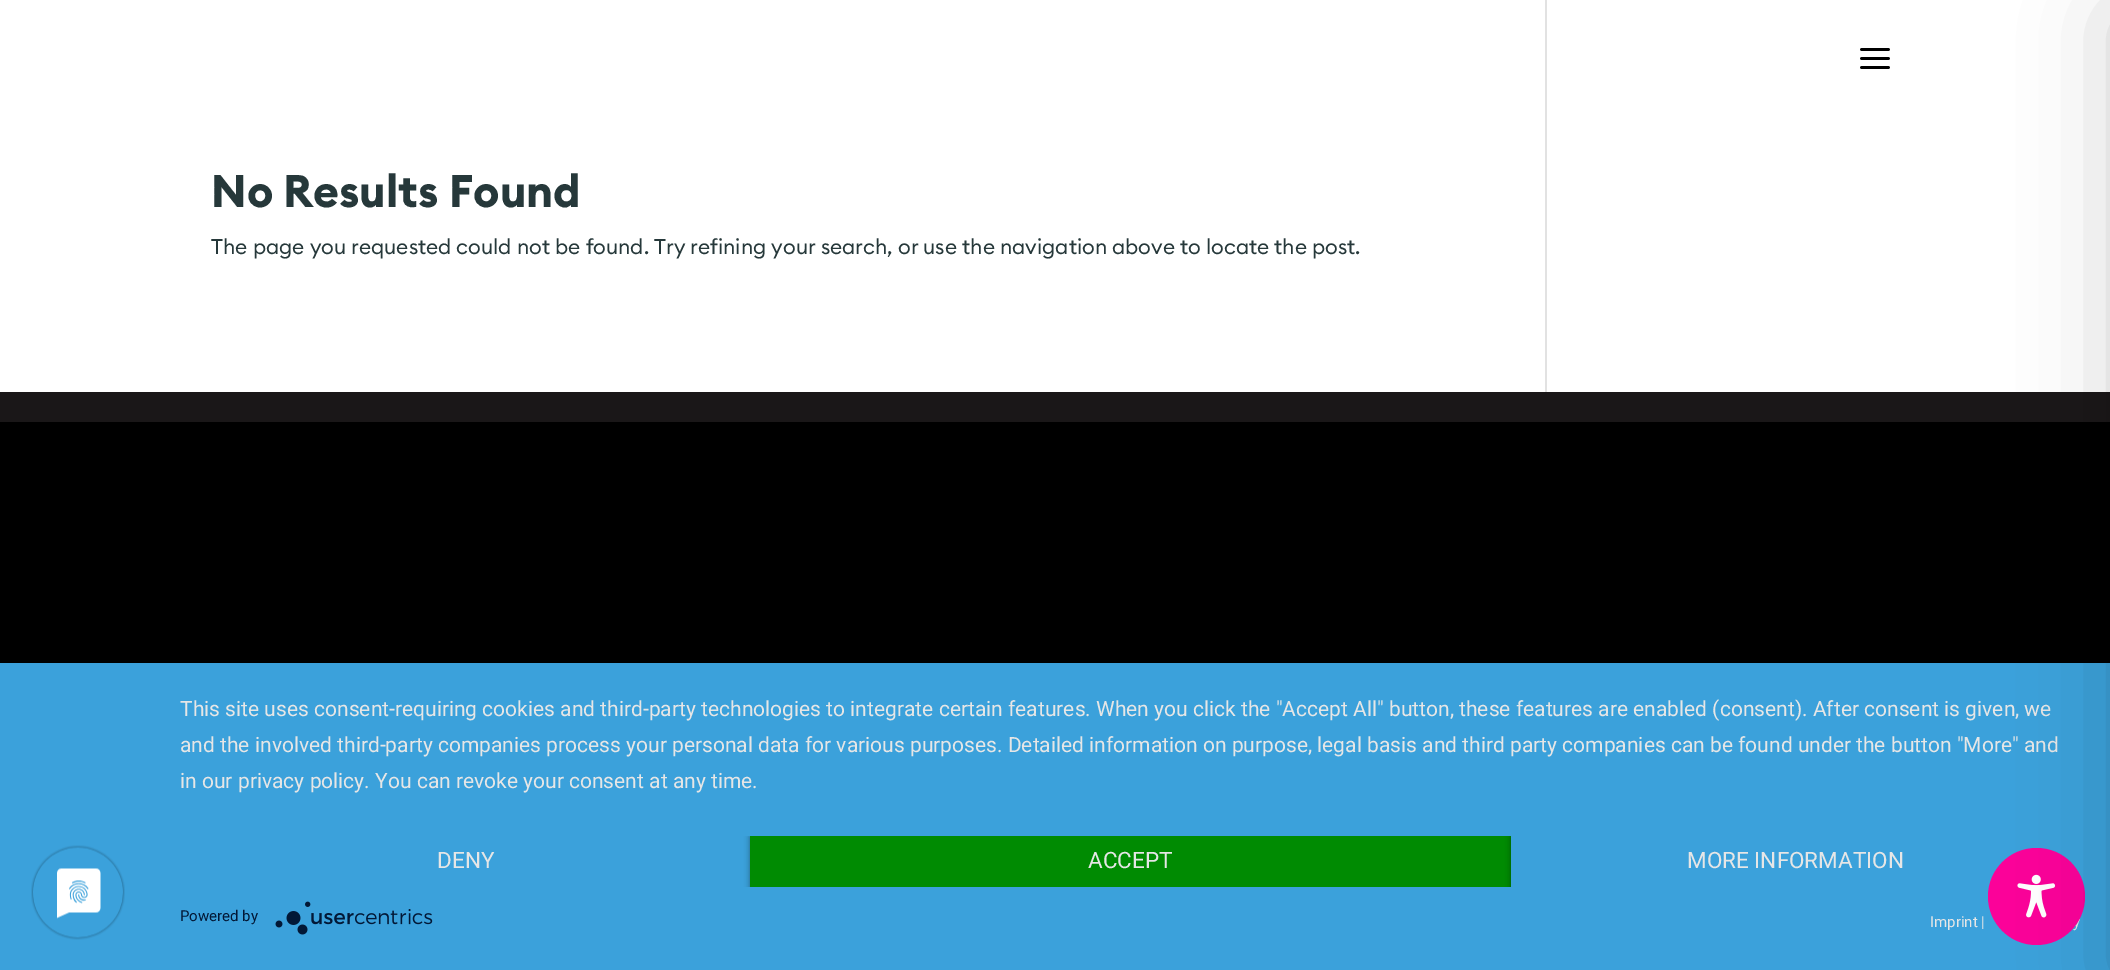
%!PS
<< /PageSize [2110 970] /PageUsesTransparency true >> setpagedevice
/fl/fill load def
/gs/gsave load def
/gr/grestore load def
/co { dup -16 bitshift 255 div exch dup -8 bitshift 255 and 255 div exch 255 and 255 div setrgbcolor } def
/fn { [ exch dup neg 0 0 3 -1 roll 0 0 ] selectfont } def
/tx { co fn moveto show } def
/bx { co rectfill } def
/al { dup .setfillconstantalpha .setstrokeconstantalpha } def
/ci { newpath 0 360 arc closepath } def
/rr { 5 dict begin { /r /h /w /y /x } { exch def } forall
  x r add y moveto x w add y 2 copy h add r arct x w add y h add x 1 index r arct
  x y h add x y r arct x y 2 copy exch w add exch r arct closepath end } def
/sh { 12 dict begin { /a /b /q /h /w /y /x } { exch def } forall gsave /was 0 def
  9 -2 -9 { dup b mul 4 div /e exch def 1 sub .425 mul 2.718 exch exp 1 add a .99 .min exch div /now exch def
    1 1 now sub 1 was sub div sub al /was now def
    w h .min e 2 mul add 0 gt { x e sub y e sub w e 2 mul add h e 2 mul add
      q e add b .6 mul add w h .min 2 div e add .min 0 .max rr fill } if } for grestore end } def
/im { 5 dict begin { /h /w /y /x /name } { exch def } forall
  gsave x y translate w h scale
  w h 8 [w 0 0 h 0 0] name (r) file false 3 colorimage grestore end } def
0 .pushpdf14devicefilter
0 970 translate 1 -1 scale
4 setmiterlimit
0 0 2110 970 16#000000 bx
0 0 2110 392 16#FFFFFF bx
(media/1.raw) 1860 48 30 21 im
1545 0 2 392 16#E2E2E2 bx
0 392 2110 30 16#1A1718 bx
0 663 2110 307 16#3BA1DB bx
(media/2.raw) 31 845 94 95 im
gs
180 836 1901 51 rectclip
16#000000 co
750 837 761 51 0 3 .4 sh
gr
750 836 761 51 16#008B02 bx
gs
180 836 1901 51 rectclip
16#000000 co
1511 837 570 51 0 3 .4 sh
gr
1511 836 570 51 16#3BA1DB bx
(media/3.raw) 275 901 158 34 im
(No Results Found) 211 207 /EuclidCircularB-Bold 45 16#26383A tx
(The page you requested could not be found. Try refining your search, or use the navigation above to locate the post.) 211 254 /EuclidCircularB-Regular 21 16#26383A tx
(This site uses consent-requiring cookies and third-party technologies to integrate certain features. When you click the "Accept All" button, these features are enabled \(consent\). After consent is given, we) 180 716 /Roboto-Regular 21 16#E6E6E6 tx
(and the involved third-party companies process your personal data for various purposes. Detailed information on purpose, legal basis and third party companies can be found under the button "More" and) 180 752 /Roboto-Regular 21 16#E6E6E6 tx
(in our privacy policy. You can revoke your consent at any time.) 180 788 /Roboto-Regular 21 16#E6E6E6 tx
(DENY) 437 868 /Roboto-Regular 22.5 16#E6E6E6 tx
(ACCEPT) 1088 868 /Roboto-Regular 22.5 16#E6E6E6 tx
(MORE INFORMATION) 1687 868 /Roboto-Regular 22.5 16#E6E6E6 tx
(Powered by) 180 921 /Roboto-Regular 15 16#021836 tx
(Imprint |) 1930 927 /Roboto-Regular 15 16#E6E6E6 tx
(y) 2073 927 /Roboto-Regular 15 16#E6E6E6 tx
16#FB0299 co
2036.5 896.5 48.5 ci fl
(media/4.raw) 2017 874 39 44 im
16#000000 co
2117 15 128 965 0 45 .2 sh
.poppdf14devicefilter showpage
